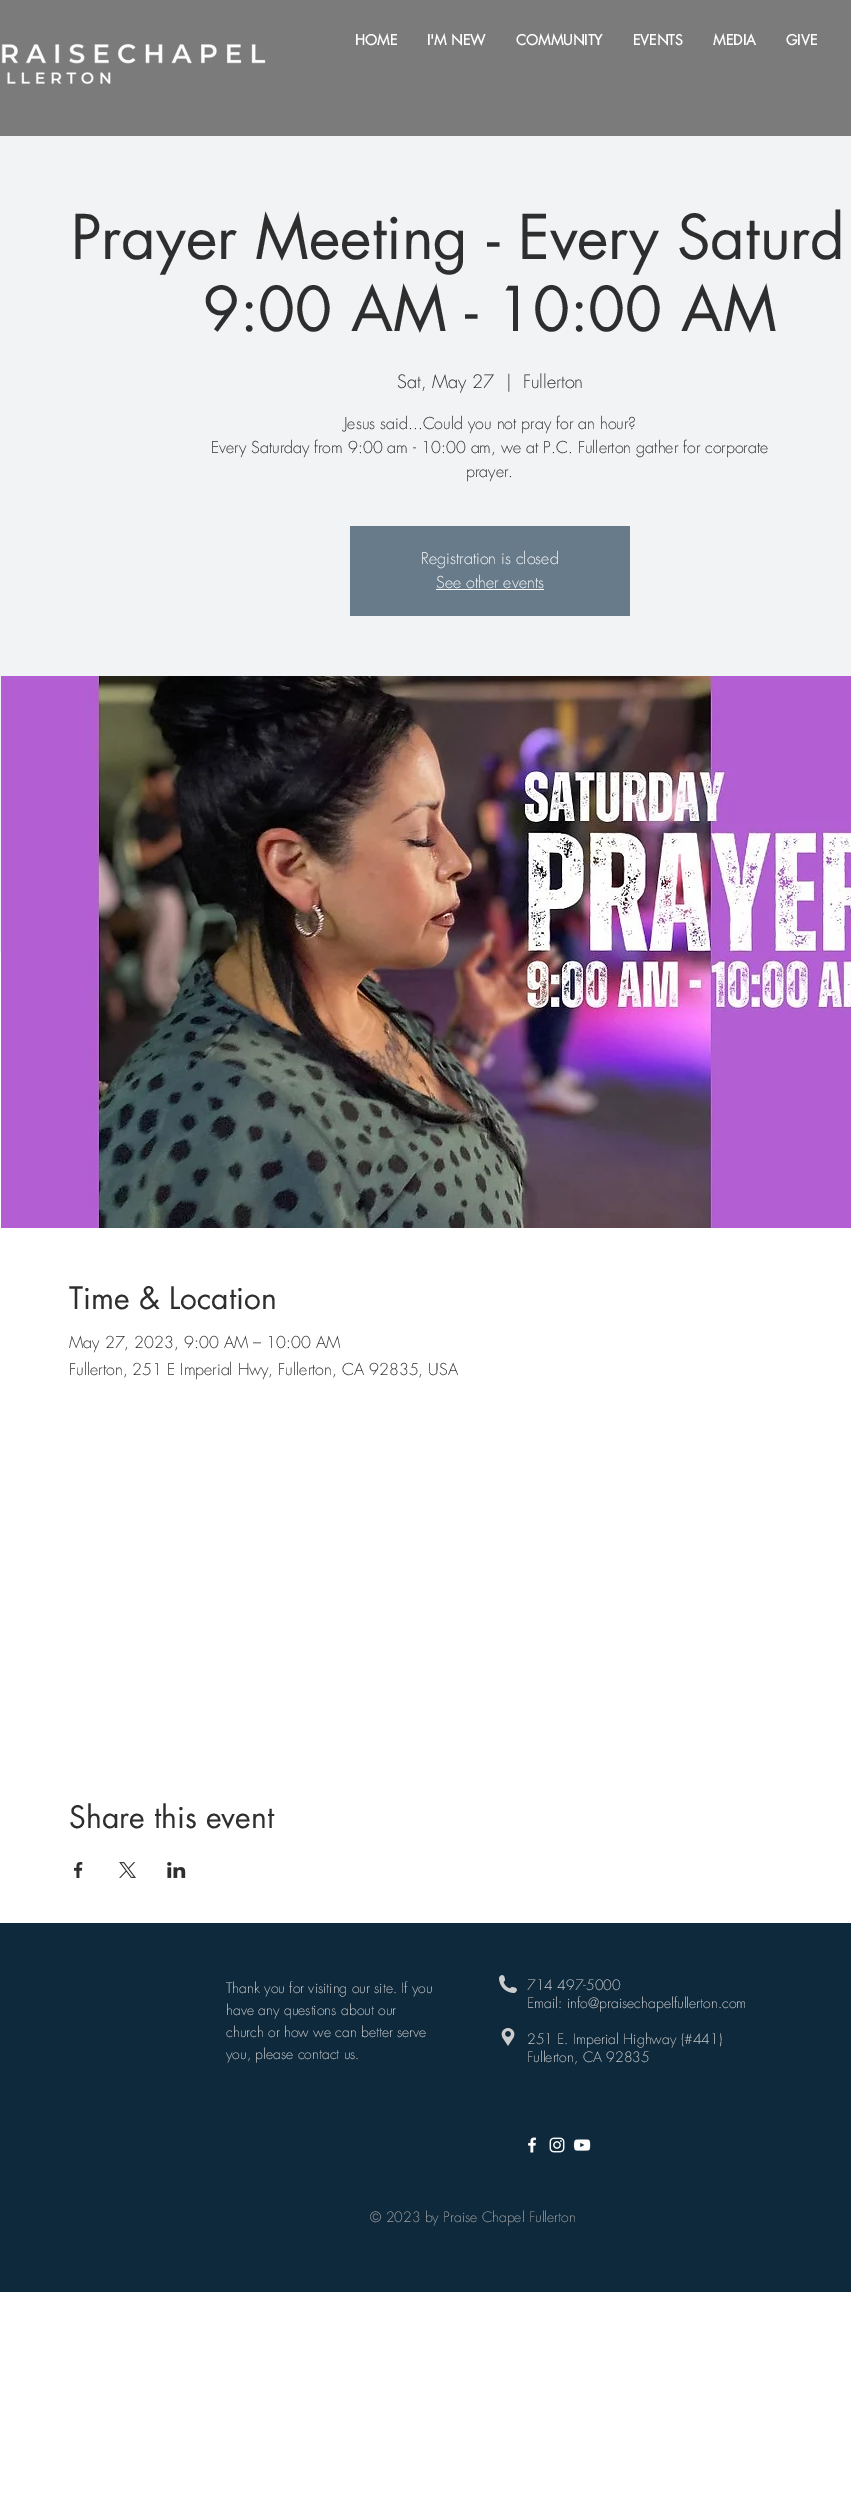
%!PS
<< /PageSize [851 2512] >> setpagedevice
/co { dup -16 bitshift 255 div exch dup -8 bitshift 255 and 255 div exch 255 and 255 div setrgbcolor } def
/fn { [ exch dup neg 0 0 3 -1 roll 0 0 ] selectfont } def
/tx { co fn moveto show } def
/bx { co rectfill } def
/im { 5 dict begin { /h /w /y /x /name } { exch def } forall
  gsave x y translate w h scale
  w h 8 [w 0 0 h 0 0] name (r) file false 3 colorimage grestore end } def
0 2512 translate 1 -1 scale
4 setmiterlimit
0 0 851 2512 16#FFFFFF bx
0 0 851 136 16#7B7B7B bx
(media/1.raw) 1 43 265 42 im
0 136 851 816 16#F1F3F4 bx
350 526 280 90 16#687B8A bx
436 589 108 1 16#FFFFFF bx
(media/2.raw) 1 676 850 552 im
(media/3.raw) 74 1862 9 16 im
(media/4.raw) 119 1862 17 16 im
(media/5.raw) 167 1862 19 16 im
0 1923 851 369 16#0F293C bx
(media/6.raw) 499 1975 18 18 im
(media/7.raw) 501 2028 14 18 im
(media/8.raw) 528 2137 9 16 im
(media/9.raw) 549 2137 16 16 im
(media/10.raw) 573 2139 18 12 im
(HOME) 355 45 /futura-Bold 14 16#FFFFFF tx
(I'M NEW) 427 45 /futura-Bold 14 16#FFFFFF tx
(COMMUNITY) 516 45 /futura-Bold 14 16#FFFFFF tx
(EVENTS) 633 45 /futura-Bold 14 16#FFFFFF tx
(MEDIA) 713 45 /futura-Bold 14 16#FFFFFF tx
(GIVE) 786 45 /futura-Bold 14 16#FFFFFF tx
(Prayer Meeting - Every Saturd) 71 259 /futura-Regular 60 16#2F2E2E tx
(9:00 AM - 10:00 AM) 203 331 /futura-Regular 60 16#2F2E2E tx
(Sat, May 27) 397 388 /futura-Light 18 16#2F2E2E tx
(|) 506 388 /futura-Light 18 16#2F2E2E tx
(Fullerton) 523 388 /futura-Light 18 16#2F2E2E tx
(Jesus said...Could you not pray for an hour?) 344 429 /futura-Light 16 16#2F2E2E tx
(Every Saturday from 9:00 am - 10:00 am, we at P.C. Fullerton gather for corporate) 211 453 /futura-Light 16 16#2F2E2E tx
(prayer.) 466 477 /futura-Light 16 16#2F2E2E tx
(Registration is closed) 421 564 /futura-Light 16 16#FFFFFF tx
(See other events) 436 588 /futura-Light 16 16#FFFFFF tx
(Time & Location) 69 1309 /futura-Regular 30 16#2F2E2E tx
(May 27, 2023, 9:00 AM – 10:00 AM) 69 1348 /futura-Light 16 16#2F2E2E tx
(Fullerton, 251 E Imperial Hwy, Fullerton, CA 92835, USA) 69 1375 /futura-Light 16 16#2F2E2E tx
(Share this event) 69 1828 /futura-Regular 30 16#2F2E2E tx
(Thank you for visiting our site. If you) 226 1993 /futura-Light 14 16#CCCCCC tx
(have any questions about our) 226 2015 /futura-Light 14 16#CCCCCC tx
(church or how we can better serve) 226 2037 /futura-Light 14 16#CCCCCC tx
(you, please contact us.) 226 2059 /futura-Light 14 16#CCCCCC tx
(714 497-5000) 527 1990 /futura-Light 14 16#CCCCCC tx
(Email: info@praisechapelfullerton.com) 527 2008 /futura-Light 14 16#CCCCCC tx
(251 E. Imperial Highway \(#441\)) 527 2044 /futura-Light 14 16#CCCCCC tx
(Fullerton, CA 92835) 527 2062 /futura-Light 14 16#CCCCCC tx
(© 2023 by Praise Chapel Fullerton) 370 2222 /futura-Light 14 16#A0A09F tx
showpage
